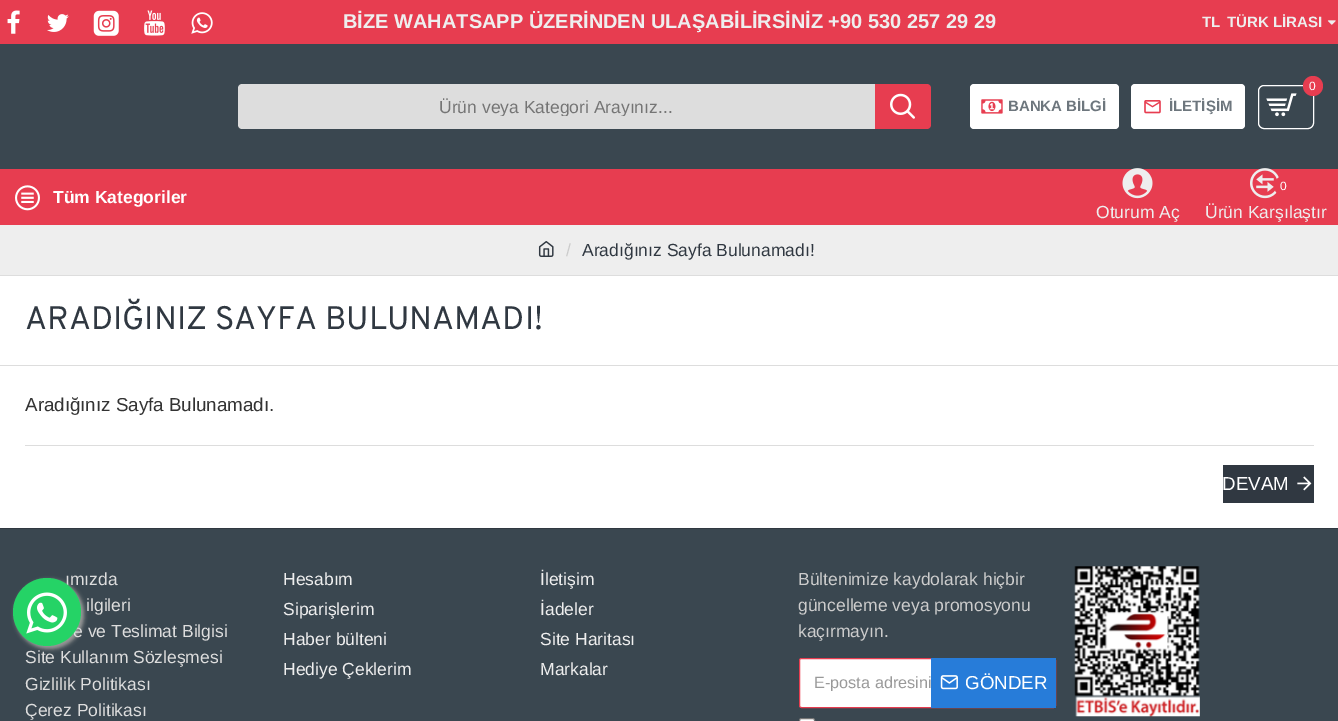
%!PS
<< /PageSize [1338 721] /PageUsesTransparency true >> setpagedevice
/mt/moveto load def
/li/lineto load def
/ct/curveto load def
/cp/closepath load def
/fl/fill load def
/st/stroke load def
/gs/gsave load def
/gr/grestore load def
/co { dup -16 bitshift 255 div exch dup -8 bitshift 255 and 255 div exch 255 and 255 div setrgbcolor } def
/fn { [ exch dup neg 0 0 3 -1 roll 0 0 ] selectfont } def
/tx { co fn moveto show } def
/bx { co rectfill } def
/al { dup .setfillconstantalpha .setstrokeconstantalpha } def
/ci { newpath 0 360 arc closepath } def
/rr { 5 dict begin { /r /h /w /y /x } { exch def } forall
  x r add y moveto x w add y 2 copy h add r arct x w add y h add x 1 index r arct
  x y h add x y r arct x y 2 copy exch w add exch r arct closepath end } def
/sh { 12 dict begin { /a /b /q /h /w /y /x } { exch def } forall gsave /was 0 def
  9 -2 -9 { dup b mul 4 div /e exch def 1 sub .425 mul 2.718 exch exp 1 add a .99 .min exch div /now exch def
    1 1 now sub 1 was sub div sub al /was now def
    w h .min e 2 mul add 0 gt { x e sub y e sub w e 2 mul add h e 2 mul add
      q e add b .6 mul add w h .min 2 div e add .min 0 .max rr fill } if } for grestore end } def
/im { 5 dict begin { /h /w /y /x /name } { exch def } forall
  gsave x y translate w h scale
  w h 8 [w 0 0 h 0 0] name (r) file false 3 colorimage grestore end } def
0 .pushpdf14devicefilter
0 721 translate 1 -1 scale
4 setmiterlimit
0 0 1338 721 16#FFFFFF bx
0 44 1338 125 16#3A4750 bx
0 0 1338 44 16#E73D50 bx
(media/1.raw) 7 10 13 24 im
(media/2.raw) 47 14 22 18 im
(media/3.raw) 93 10 26 26 im
(media/4.raw) 144 10 21 26 im
(media/5.raw) 191 12 22 22 im
(media/6.raw) 1327 20 9 5 im
16#DDDDDD co
242 84 mt 875 84 li 875 129 li 242 129 li 240 129 238 127 238 125 ct 238 88 li 238 86 240 84 242 84 ct cp fl
16#E73D50 co
875 84 mt 927 84 li 929 84 931 86 931 88 ct 931 125 li 931 127 929 129 927 129 ct 875 129 li cp fl
(media/7.raw) 890 93 25 26 im
16#FFFFFF co
1258.5 85.5 55 43 5.5 rr st
16#E73D50 co
1313 86 10 ci fl
(media/8.raw) 1266 93 31 24 im
16#FFFFFF co
970 84 149 45 4 rr fl
(media/9.raw) 981 99 22 15 im
1131 84 114 45 4 rr fl
(media/10.raw) 1144 100 17 14 im
0 169 1338 56 16#E73D50 bx
(media/11.raw) 15 185 25 26 im
(media/12.raw) 1122 168 31 31 im
(media/13.raw) 1250 168 29 31 im
1284 186 10 ci fl
0 225 1338 50 16#EEEEEE bx
0 275 1338 1 16#DDDDDD bx
(media/14.raw) 538 241 16 16 im
0 365 1338 1 16#DDDDDD bx
25 445 1289 1 16#DDDDDD bx
1223 465 91 38 16#303841 bx
(media/15.raw) 1297 476 15 15 im
0 529 1338 192 16#3A4750 bx
0 528 1338 1 16#303841 bx
16#FFFFFF co
799.5 658.5 256 49 2 rr gs fl gr
16#E73D50 co
st
931 658 125 50 16#277CD9 bx
(media/16.raw) 940 675 18 15 im
16#FFFFFF co
799.5 718.5 15 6 2 rr gs fl gr
16#767676 co
st
(media/17.raw) 1074 566 126 151 im
16#999999 co
15 580 69 69 34.5 2 1 sh
(BİZE WAHATSAPP ÜZERİNDEN ULAŞABİLİRSİNİZ +90 530 257 29 29) 343 28 /LiberationSans-Bold 20 16#EEEEEE tx
(TL) 1202 27 /LiberationSans-Bold 15 16#EEEEEE tx
(TÜRK LİRASI) 1227 27 /LiberationSans-Bold 15 16#EEEEEE tx
gs
253 96 607 20 rectclip
(Ürün veya Kategori Arayınız...) 439 113 /LiberationSans-Regular 17.5 16#757575 tx
gr
(0) 1309 90 /LiberationSans-Regular 12 16#FFFFFF tx
(BANKA BİLGİ) 1008 111 /LiberationSans-Bold 15 16#6D767D tx
(İLETİŞİM) 1169 111 /LiberationSans-Bold 15 16#6D767D tx
(Tüm Kategoriler) 53 203 /LiberationSans-Bold 17.5 16#FFFFFF tx
(Oturum Aç) 1096 218 /LiberationSans-Regular 17.5 16#EEEEEE tx
(0) 1280 190 /LiberationSans-Regular 12 16#FFFFFF tx
(Ürün Karşılaştır) 1205 218 /LiberationSans-Regular 17.5 16#EEEEEE tx
(/) 566 256 /LiberationSans-Regular 17.5 16#CCCCCC tx
(Aradığınız Sayfa Bulunamadı!) 582 256 /LiberationSans-Regular 17.5 16#303841 tx
(ARADIĞINIZ SAYFA BULUNAMADI!) 25 329 /Overpass-Regular 32.5 16#303841 tx
(Aradığınız Sayfa Bulunamadı.) 25 411 /LiberationSans-Regular 18.75 16#333333 tx
(DEVAM) 1222 490 /LiberationSans-Regular 18.75 16#FFFFFF tx
(ımızda) 65 585 /LiberationSans-Regular 17.5 16#DDDDDD tx
(ilgileri) 86 611 /LiberationSans-Regular 17.5 16#DDDDDD tx
(e ve Teslimat Bilgisi) 73 637 /LiberationSans-Regular 17.5 16#DDDDDD tx
(Site Kullanım Sözleşmesi) 25 663 /LiberationSans-Regular 17.5 16#DDDDDD tx
(Gizlilik Politikası) 25 690 /LiberationSans-Regular 17.5 16#DDDDDD tx
(Çerez Politikası) 25 716 /LiberationSans-Regular 17.5 16#DDDDDD tx
(Hesabım) 283 585 /LiberationSans-Regular 17.5 16#EEEEEE tx
(Siparişlerim) 283 615 /LiberationSans-Regular 17.5 16#EEEEEE tx
(Haber bülteni) 283 645 /LiberationSans-Regular 17.5 16#EEEEEE tx
(Hediye Çeklerim) 283 675 /LiberationSans-Regular 17.5 16#EEEEEE tx
(İletişim) 540 585 /LiberationSans-Regular 17.5 16#EEEEEE tx
(İadeler) 540 615 /LiberationSans-Regular 17.5 16#EEEEEE tx
(Site Haritası) 540 645 /LiberationSans-Regular 17.5 16#EEEEEE tx
(Markalar) 540 675 /LiberationSans-Regular 17.5 16#EEEEEE tx
(Bültenimize kaydolarak hiçbir) 798 585 /LiberationSans-Regular 17.5 16#CCCCCC tx
(güncelleme veya promosyonu) 798 611 /LiberationSans-Regular 17.5 16#CCCCCC tx
(kaçırmayın.) 798 637 /LiberationSans-Regular 17.5 16#CCCCCC tx
gs
815 673 225 18 rectclip
(E-posta adresini) 814 688 /LiberationSans-Regular 16.25 16#999999 tx
gr
(GÖNDER) 965 689 /LiberationSans-Regular 18.75 16#FFFFFF tx
16#25D366 co
47 612 34 ci fl
(media/18.raw) 26 592 41 42 im
.poppdf14devicefilter showpage
